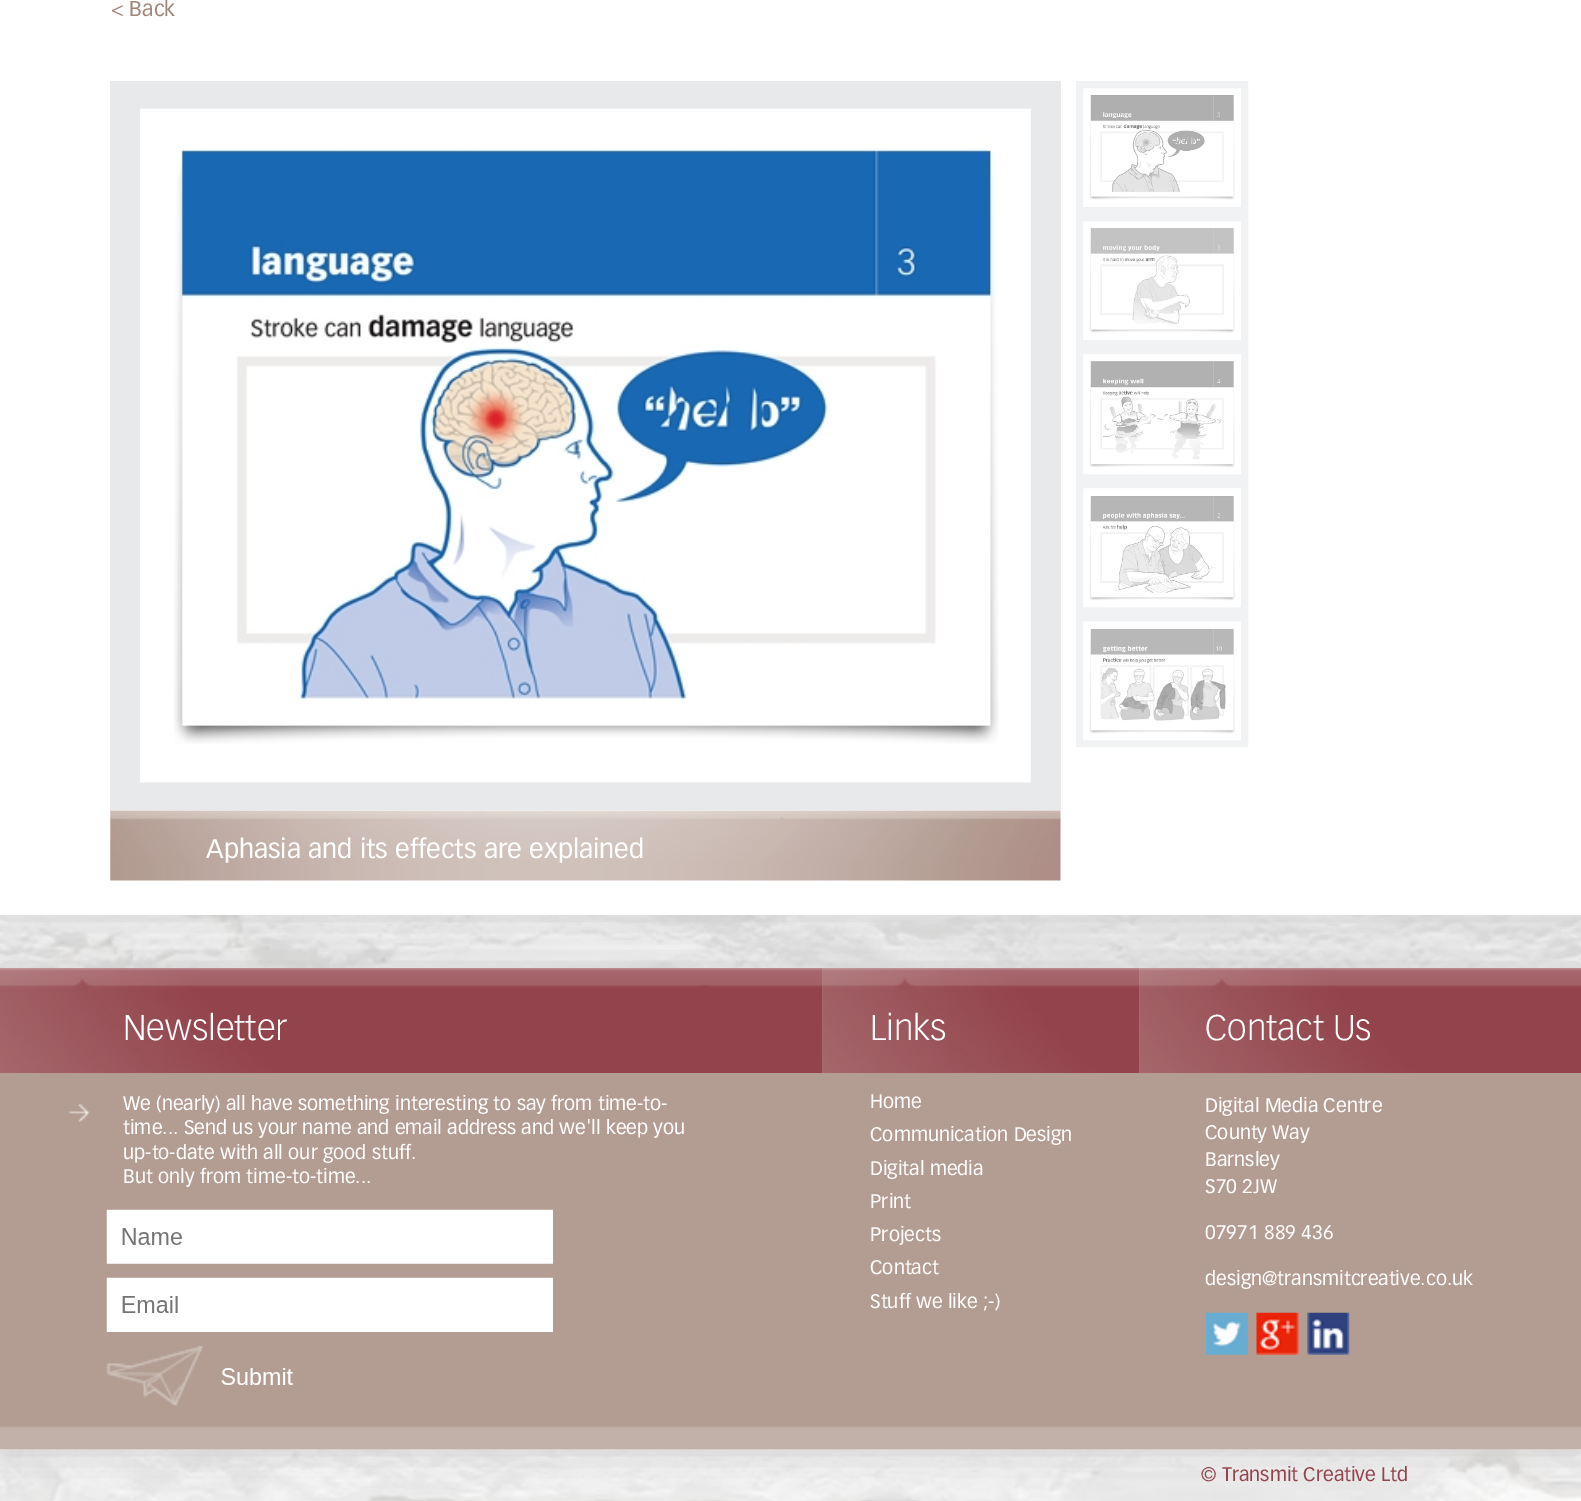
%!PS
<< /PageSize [1581 1501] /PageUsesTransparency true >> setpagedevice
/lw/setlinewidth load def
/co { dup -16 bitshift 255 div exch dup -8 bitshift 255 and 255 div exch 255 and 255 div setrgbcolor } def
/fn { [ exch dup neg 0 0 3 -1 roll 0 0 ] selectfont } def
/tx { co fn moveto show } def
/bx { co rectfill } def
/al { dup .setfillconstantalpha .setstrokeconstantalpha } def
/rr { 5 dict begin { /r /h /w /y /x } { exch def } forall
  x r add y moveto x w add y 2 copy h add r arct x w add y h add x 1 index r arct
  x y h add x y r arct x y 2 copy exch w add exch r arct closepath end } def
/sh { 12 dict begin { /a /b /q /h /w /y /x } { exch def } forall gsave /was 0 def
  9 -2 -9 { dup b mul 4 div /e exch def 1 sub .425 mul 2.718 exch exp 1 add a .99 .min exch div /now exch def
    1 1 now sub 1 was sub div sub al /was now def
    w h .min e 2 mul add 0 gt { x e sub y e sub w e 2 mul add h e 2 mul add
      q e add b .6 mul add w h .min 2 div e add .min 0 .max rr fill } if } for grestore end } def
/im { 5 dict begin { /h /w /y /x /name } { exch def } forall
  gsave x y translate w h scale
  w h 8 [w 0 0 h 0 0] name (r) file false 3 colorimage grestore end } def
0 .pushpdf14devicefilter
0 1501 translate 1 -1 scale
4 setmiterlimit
0 0 1581 1501 16#FFFFFF bx
(media/1.raw) 0 915 1581 586 im
16#CCCCCC co
-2 -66 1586 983 0 22 1 sh
0 0 1581 915 16#FFFFFF bx
110 81 951 729 16#E8E9EB bx
(media/2.raw) 140 108 891 675 im
16#F1F2F3 co
7 lw
1079.5 84.5 165 126 rectstroke
(media/3.raw) 1089 95 146 105 im
1079.5 217.5 165 126 rectstroke
(media/4.raw) 1089 228 146 105 im
1079.5 350.5 165 127 rectstroke
(media/5.raw) 1084 361 156 114 im
1079.5 484.5 165 126 rectstroke
(media/6.raw) 1084 496 156 112 im
1079.5 617.5 165 126 rectstroke
(media/7.raw) 1084 629 156 112 im
(media/8.raw) 110 810 951 71 im
16#CCCCCC co
-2 966 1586 485 0 22 1 sh
(media/9.raw) 0 968 1581 482 im
(media/10.raw) 0 968 823 105 im
(media/11.raw) 68 1104 22 18 im
(media/12.raw) 106 1209 447 197 im
(media/13.raw) 822 968 318 105 im
(media/14.raw) 1139 968 442 105 im
(media/15.raw) 1205 1312 43 43 im
(media/16.raw) 1256 1312 43 43 im
(media/17.raw) 1307 1312 43 43 im
(< Back) 111 16 /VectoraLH-Regular 21 16#9F8478 tx
(Aphasia and its effects are explained) 206 858 /VectoraLH-Regular 26.25 16#FFFFFF tx
(Newsletter) 123 1040 /VectoraLH-Light 35 16#FFFFFF tx
(We \(nearly\) all have something interesting to say from time-to-) 123 1110 /VectoraLH-Regular 19.25 16#FFFFFF tx
(time... Send us your name and email address and we'll keep you) 123 1134 /VectoraLH-Regular 19.25 16#FFFFFF tx
(up-to-date with all our good stuff.) 123 1159 /VectoraLH-Regular 19.25 16#FFFFFF tx
(But only from time-to-time...) 123 1183 /VectoraLH-Regular 19.25 16#FFFFFF tx
(Links) 870 1040 /VectoraLH-Light 35 16#FFFFFF tx
(Home) 870 1108 /VectoraLH-Regular 19.25 16#FFFFFF tx
(Communication Design) 870 1141 /VectoraLH-Regular 19.25 16#FFFFFF tx
(Digital media) 870 1175 /VectoraLH-Regular 19.25 16#FFFFFF tx
(Print) 870 1208 /VectoraLH-Regular 19.25 16#FFFFFF tx
(Projects) 870 1241 /VectoraLH-Regular 19.25 16#FFFFFF tx
(Contact) 870 1274 /VectoraLH-Regular 19.25 16#FFFFFF tx
(Stuff we like ;-\)) 870 1308 /VectoraLH-Regular 19.25 16#FFFFFF tx
(Contact Us) 1205 1040 /VectoraLH-Light 35 16#FFFFFF tx
(Digital Media Centre) 1205 1112 /VectoraLH-Regular 19.25 16#FFFFFF tx
(County Way) 1205 1139 /VectoraLH-Regular 19.25 16#FFFFFF tx
(Barnsley) 1205 1166 /VectoraLH-Regular 19.25 16#FFFFFF tx
(S70 2JW) 1205 1193 /VectoraLH-Regular 19.25 16#FFFFFF tx
(07971 889 436) 1205 1239 /VectoraLH-Regular 19.25 16#FFFFFF tx
(design@transmitcreative.co.uk) 1205 1285 /VectoraLH-Regular 19.25 16#FFFFFF tx
(© Transmit Creative Ltd) 1201 1481 /VectoraLH-Regular 19.25 16#92434C tx
.poppdf14devicefilter showpage
